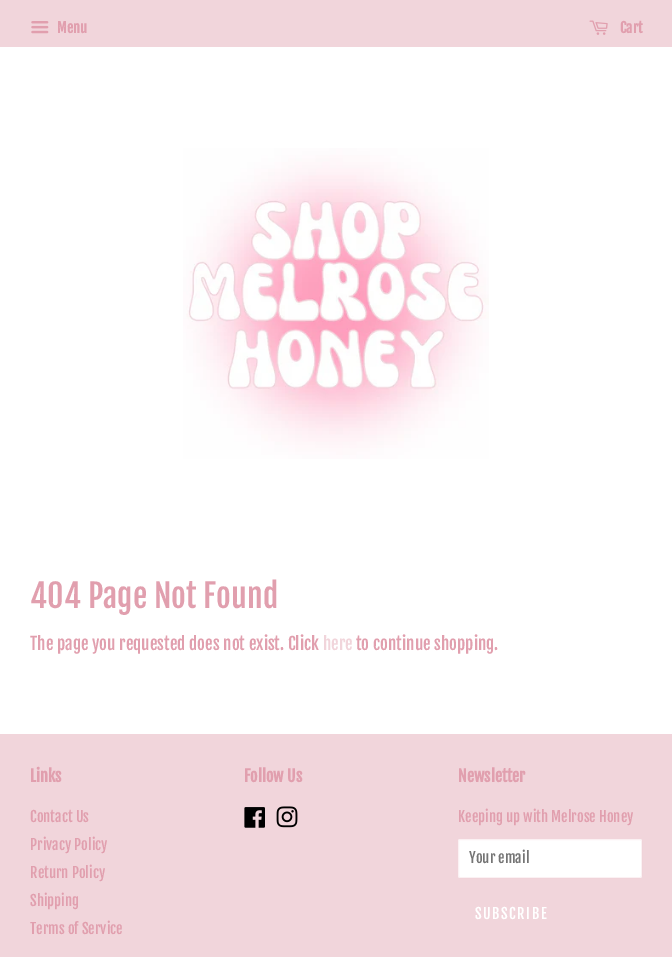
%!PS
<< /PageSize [672 957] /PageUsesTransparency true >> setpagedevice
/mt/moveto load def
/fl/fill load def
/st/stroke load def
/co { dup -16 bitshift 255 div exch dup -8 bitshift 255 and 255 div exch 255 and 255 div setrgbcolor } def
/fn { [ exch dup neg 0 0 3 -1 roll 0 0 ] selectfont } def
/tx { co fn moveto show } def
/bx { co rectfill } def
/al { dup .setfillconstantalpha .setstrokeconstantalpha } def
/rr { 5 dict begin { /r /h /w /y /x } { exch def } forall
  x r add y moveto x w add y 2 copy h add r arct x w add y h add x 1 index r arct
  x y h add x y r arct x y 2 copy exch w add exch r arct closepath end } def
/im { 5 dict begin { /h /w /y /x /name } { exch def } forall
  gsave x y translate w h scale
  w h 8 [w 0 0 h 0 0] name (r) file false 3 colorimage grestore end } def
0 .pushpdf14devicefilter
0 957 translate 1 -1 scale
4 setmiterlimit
0 0 672 957 16#FFFFFF bx
0 0 672 47 16#F1D5DB bx
(media/1.raw) 31 21 18 13 im
(media/2.raw) 589 20 19 15 im
(media/3.raw) 183 148 306 311 im
0 734 672 223 16#F1D5DB bx
(media/4.raw) 244 807 21 21 im
(media/5.raw) 276 806 22 22 im
16#FFFFFF co
458 839 184 39 2 rr fl
0.15 al
16#E19FAE co
458.5 839.5 183 38 1.5 rr st
1 al
(Menu) 57 33 /FjallaOne-Bold 14 16#E19FAE tx
(Cart) 620 33 /FjallaOne-Bold 14 16#E19FAE tx
(404 Page Not Found) 30 608 /FjallaOne-Regular 32 16#E19FAE tx
(The page you requested does not exist. Click) 30 650 /FjallaOne-Regular 17 16#E19FAE tx
(here) 323 650 /FjallaOne-Regular 17 16#F1D5DB tx
(to continue shopping.) 356 650 /FjallaOne-Regular 17 16#E19FAE tx
(Links) 30 782 /FjallaOne-Bold 16 16#E19FAE tx
(Contact Us) 30 822 /FjallaOne-Regular 14.5 16#E19FAE tx
(Privacy Policy) 30 850 /FjallaOne-Regular 14.5 16#E19FAE tx
(Return Policy) 30 878 /FjallaOne-Regular 14.5 16#E19FAE tx
(Shipping) 30 906 /FjallaOne-Regular 14.5 16#E19FAE tx
(Terms of Service) 30 934 /FjallaOne-Regular 14.5 16#E19FAE tx
(Follow Us) 244 782 /FjallaOne-Bold 16 16#E19FAE tx
(Newsletter) 458 782 /FjallaOne-Bold 16 16#E19FAE tx
(Keeping up with Melrose Honey) 458 822 /FjallaOne-Regular 14.5 16#E19FAE tx
(Your email) 469 863 /FjallaOne-Regular 14.5 16#757575 tx
16#FFFFFF co
475 919 mt 1.5 0 (SUBSCRIBE) ashow
.poppdf14devicefilter showpage
